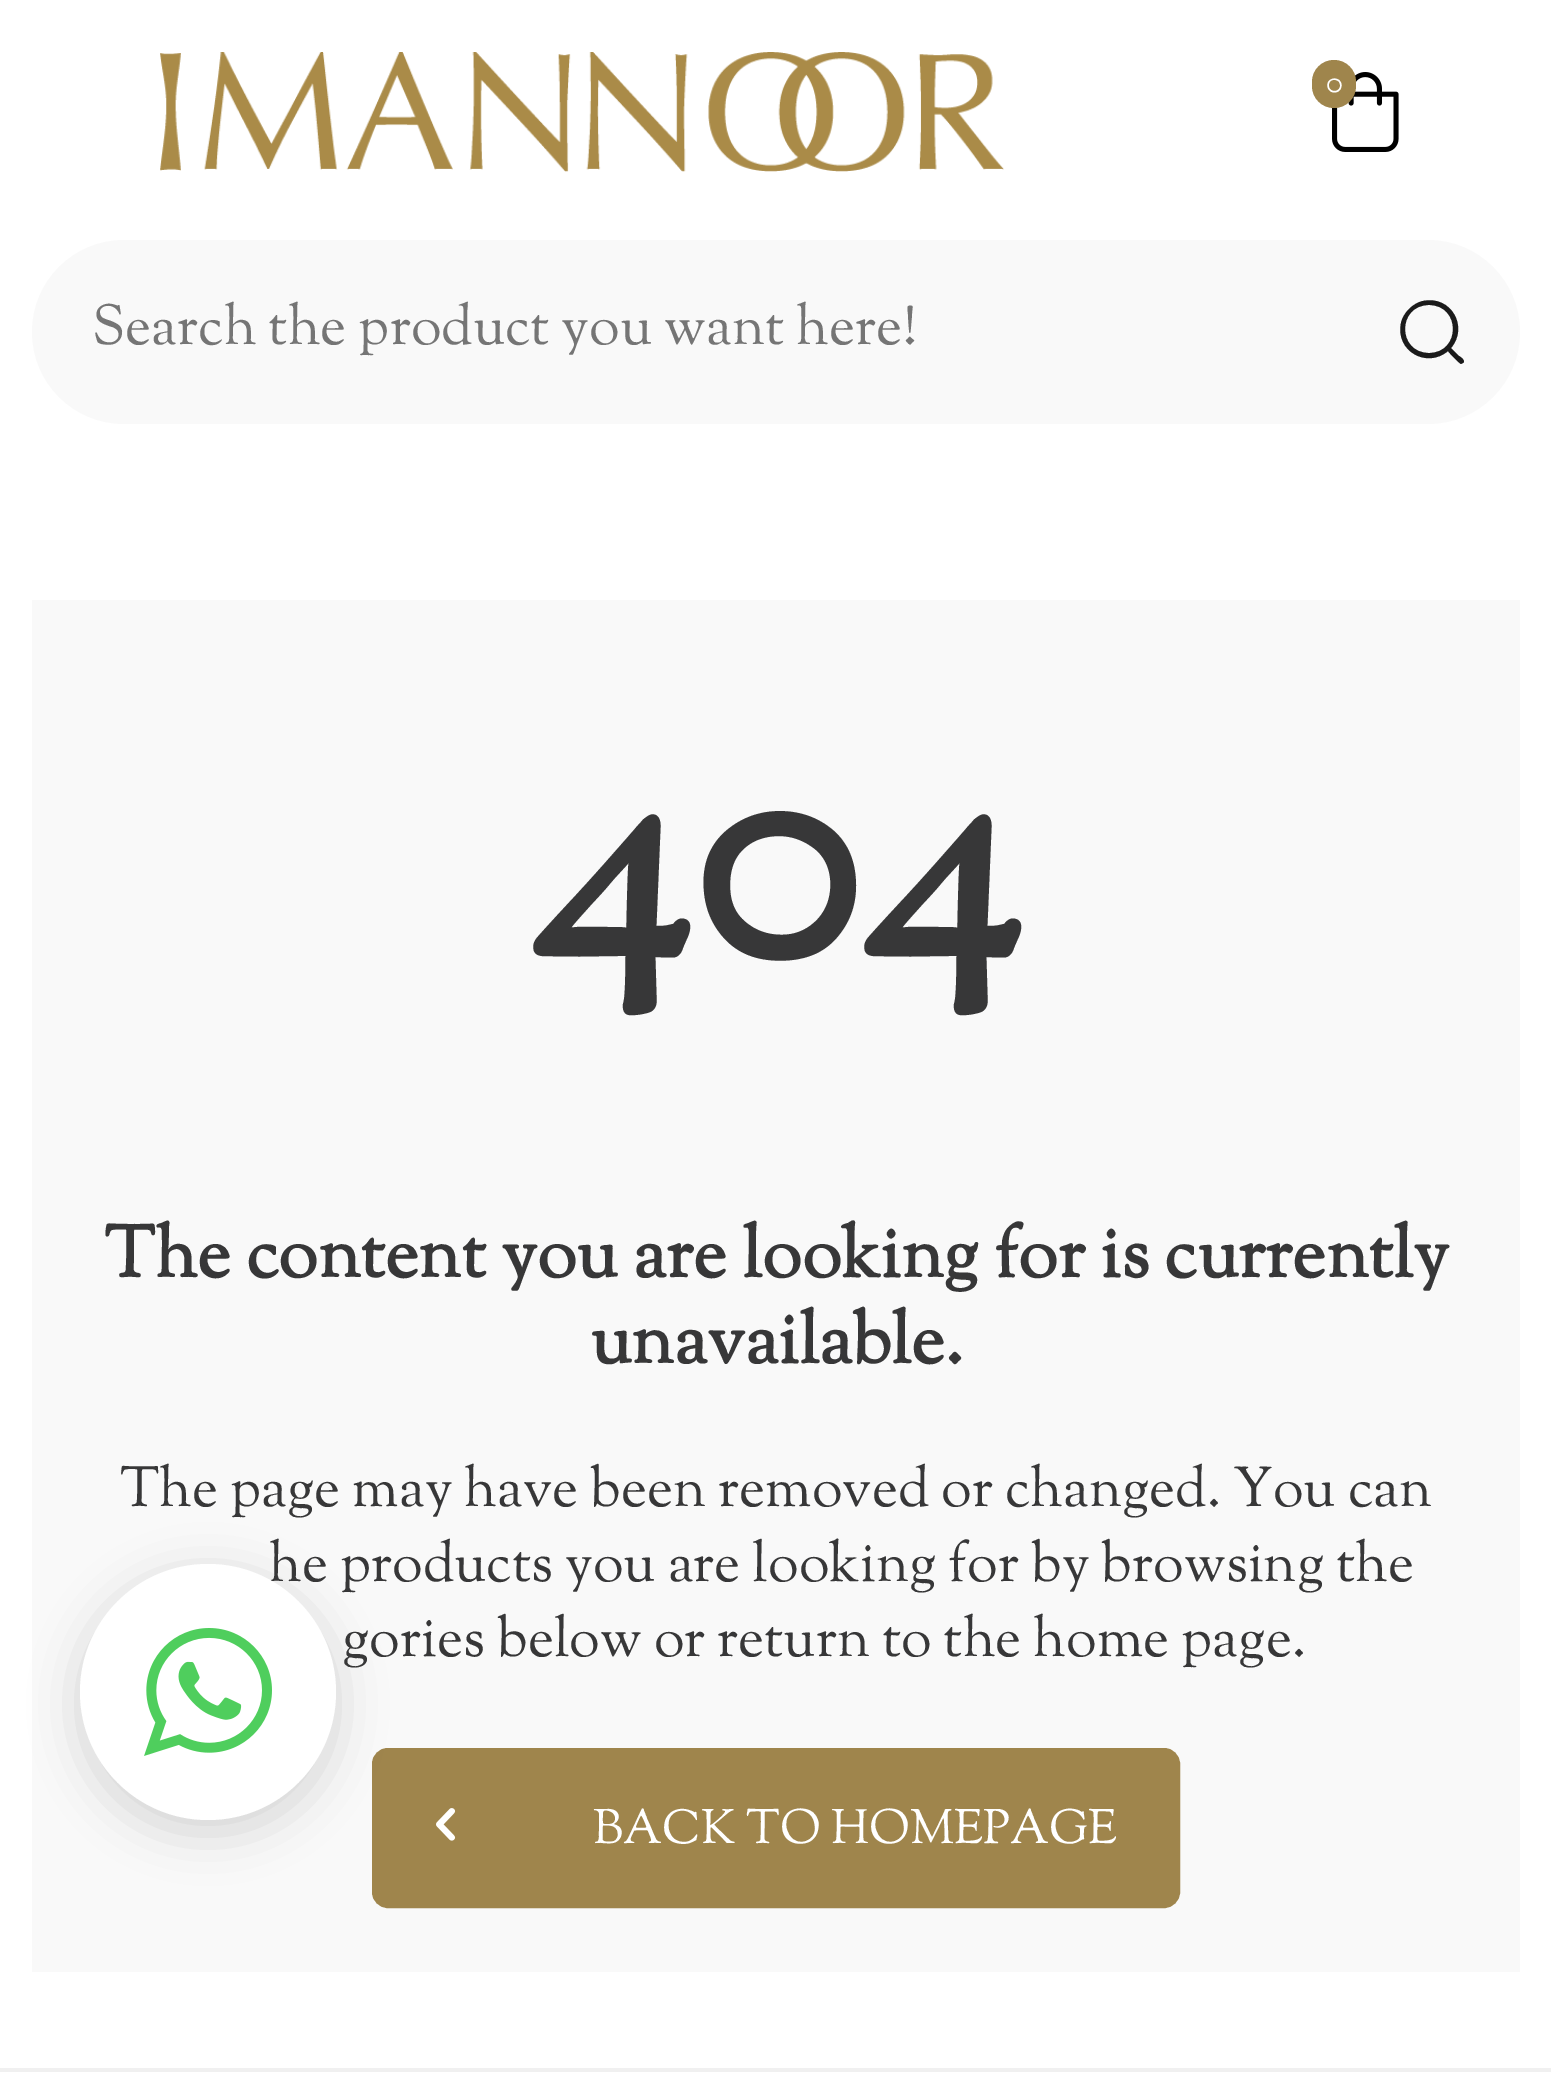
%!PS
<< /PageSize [1551 2100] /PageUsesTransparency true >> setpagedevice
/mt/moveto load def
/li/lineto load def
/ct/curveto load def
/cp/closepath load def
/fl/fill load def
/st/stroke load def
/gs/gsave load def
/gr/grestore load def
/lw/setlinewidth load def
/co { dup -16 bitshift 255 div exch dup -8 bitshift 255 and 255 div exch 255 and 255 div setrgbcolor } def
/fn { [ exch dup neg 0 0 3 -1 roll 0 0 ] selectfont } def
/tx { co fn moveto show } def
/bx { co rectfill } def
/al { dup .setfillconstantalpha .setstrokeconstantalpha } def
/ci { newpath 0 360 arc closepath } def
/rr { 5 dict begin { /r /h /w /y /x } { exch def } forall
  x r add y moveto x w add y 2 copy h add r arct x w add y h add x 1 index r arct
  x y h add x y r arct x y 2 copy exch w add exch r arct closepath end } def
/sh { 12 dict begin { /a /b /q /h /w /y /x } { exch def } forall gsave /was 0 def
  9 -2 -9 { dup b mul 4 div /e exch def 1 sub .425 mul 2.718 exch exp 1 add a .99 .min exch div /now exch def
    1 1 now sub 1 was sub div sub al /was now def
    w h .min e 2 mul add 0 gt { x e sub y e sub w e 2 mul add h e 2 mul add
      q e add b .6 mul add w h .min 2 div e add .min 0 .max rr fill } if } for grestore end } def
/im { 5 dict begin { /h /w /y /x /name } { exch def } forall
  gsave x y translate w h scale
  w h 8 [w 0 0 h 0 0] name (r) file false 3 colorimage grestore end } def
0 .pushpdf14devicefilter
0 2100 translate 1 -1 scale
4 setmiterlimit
0 0 1551 2100 16#FFFFFF bx
(media/1.raw) 160 52 844 120 im
(media/2.raw) 1332 72 67 80 im
16#9F854C co
1312 60 44 48 22 rr fl
16#F9F9F9 co
32 240 1488 184 92 rr fl
16#1B1B1B co
1451 348 mt 1459 356 li 1461 357 1466 361 1463 363 ct 1461 364 li 1459 363 1450 354 1448 351 ct 1427 369 1395 351 1401 323 ct 1402 318 1405 313 1409 309 ct 1413 305 1418 302 1423 301 ct 1451 295 1469 327 1451 348 ct cp 1429 305 mt 1397 305 1397 353 1429 353 ct 1461 353 1461 305 1429 305 ct cp eofill
32 600 1488 1372 16#F9F9F9 bx
16#9F854C co
374 1750 804 156 14 rr gs fl gr
4 lw
st
(media/3.raw) 436 1808 20 33 im
16#000000 co
80 1576 256 256 128 24 .15 sh
0 2068 1551 4 16#F0F0F0 bx
(0) 1326 92 /SortsMillGoudy-Regular 32 16#FFFFFF tx
(Search the product you want here!) 92 344 /SortsMillGoudy-Regular 56 16#757575 tx
(404) 530 956 /SortsMillGoudy-Bold 320 16#373738 tx
(The content you are looking for is currently) 104 1277 /SortsMillGoudy-Bold 72 16#373738 tx
(unavailable.) 590 1363 /SortsMillGoudy-Bold 72 16#373738 tx
(The page may have been removed or changed. You can) 120 1506 /SortsMillGoudy-Regular 56 16#373738 tx
(he products you are looking for by browsing the) 269 1581 /SortsMillGoudy-Regular 56 16#373738 tx
(gories below or return to the home page.) 342 1656 /SortsMillGoudy-Regular 56 16#373738 tx
(BACK TO HOMEPAGE) 593 1843 /SortsMillGoudy-Regular 48 16#FFFFFF tx
208 1692 128 ci fl
(media/4.raw) 144 1628 128 128 im
.poppdf14devicefilter showpage
